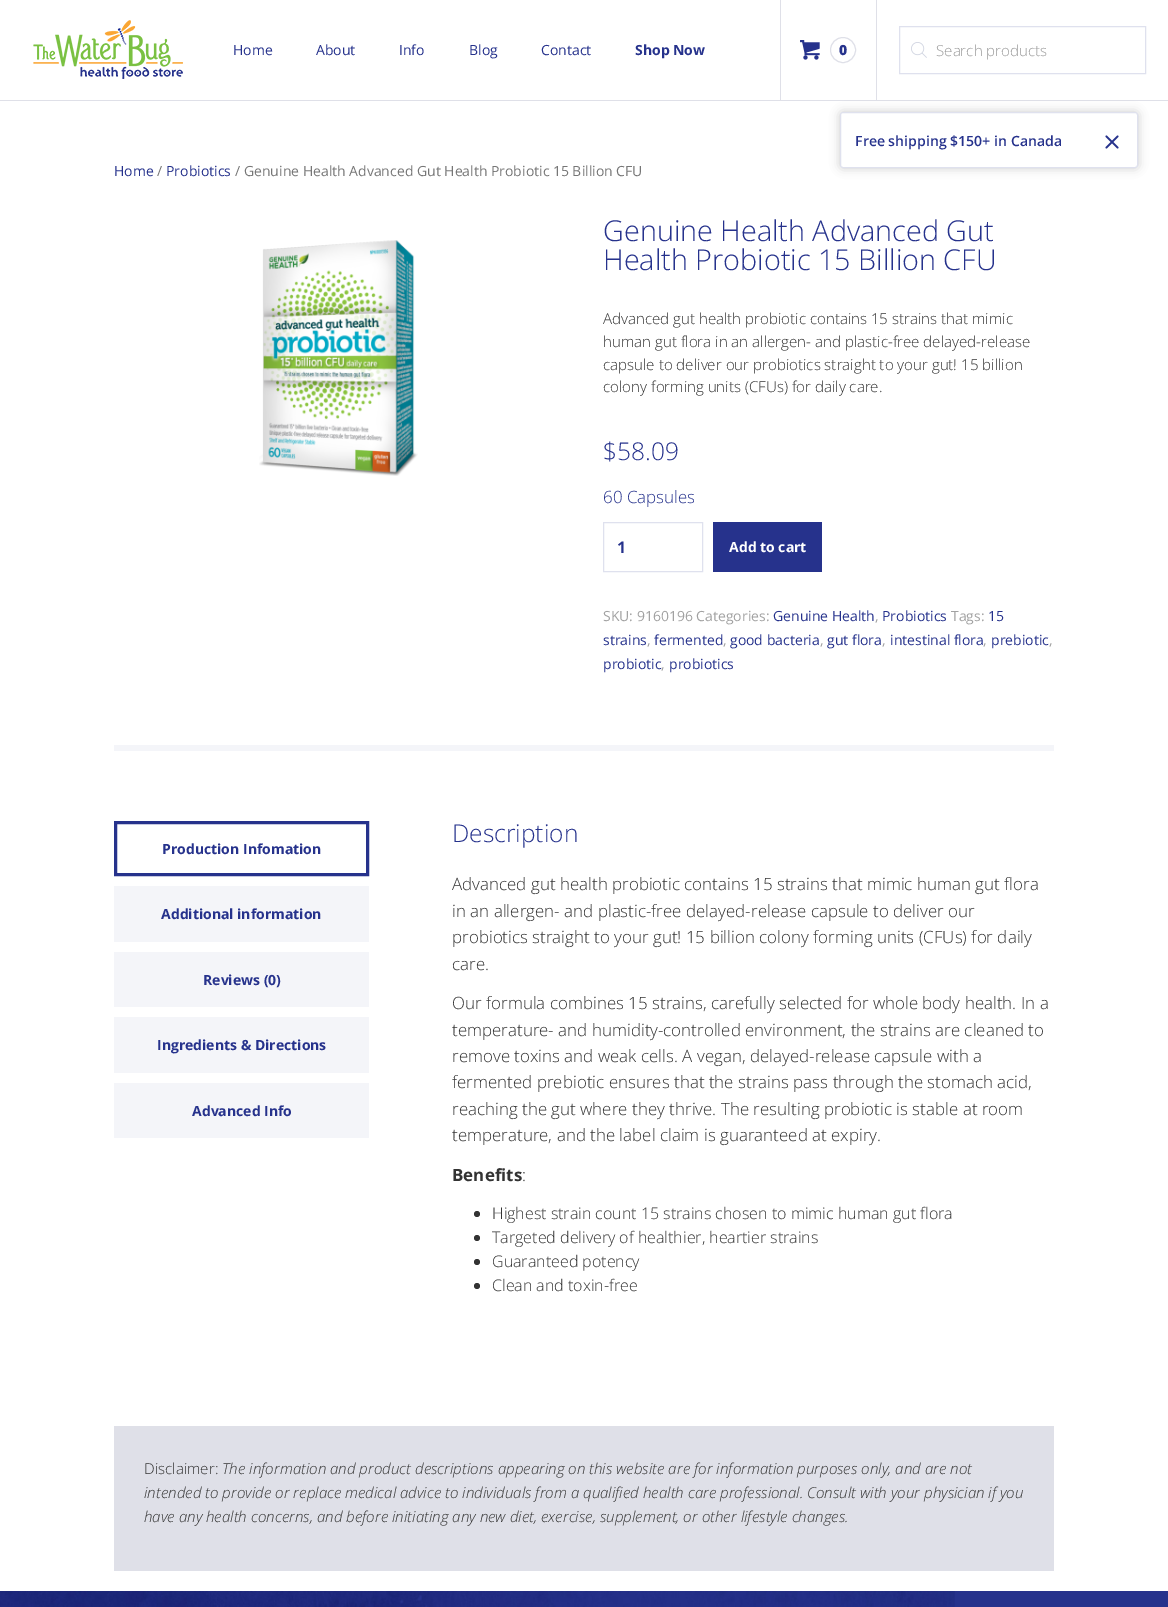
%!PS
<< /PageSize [1168 1607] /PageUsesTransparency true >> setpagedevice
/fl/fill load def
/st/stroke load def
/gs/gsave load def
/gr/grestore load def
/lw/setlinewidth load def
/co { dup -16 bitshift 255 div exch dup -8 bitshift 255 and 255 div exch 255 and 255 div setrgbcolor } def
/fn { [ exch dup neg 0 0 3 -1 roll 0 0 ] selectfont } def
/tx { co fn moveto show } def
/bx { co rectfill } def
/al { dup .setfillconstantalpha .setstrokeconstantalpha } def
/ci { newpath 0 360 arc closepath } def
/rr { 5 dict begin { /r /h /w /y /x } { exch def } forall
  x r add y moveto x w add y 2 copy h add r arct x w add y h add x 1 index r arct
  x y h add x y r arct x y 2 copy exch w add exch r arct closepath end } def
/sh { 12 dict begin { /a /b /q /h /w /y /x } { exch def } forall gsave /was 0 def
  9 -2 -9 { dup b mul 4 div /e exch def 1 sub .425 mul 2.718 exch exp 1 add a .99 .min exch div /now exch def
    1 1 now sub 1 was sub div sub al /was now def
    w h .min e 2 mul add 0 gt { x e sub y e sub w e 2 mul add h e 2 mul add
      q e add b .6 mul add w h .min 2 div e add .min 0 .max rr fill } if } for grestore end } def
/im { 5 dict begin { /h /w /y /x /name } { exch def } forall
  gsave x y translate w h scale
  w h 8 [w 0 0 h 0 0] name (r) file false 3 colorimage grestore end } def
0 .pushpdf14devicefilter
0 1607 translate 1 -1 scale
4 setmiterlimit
0 0 1168 1607 16#FFFFFF bx
(media/1.raw) 33 20 150 59 im
780 0 1 100 16#DFE0E8 bx
(media/2.raw) 800 40 20 20 im
843 50 12.5 ci st
876 0 1 100 16#DFE0E8 bx
16#DFE1EE co
899.5 26.5 246 47 rectstroke
(media/3.raw) 911 42 16 16 im
0 100 1168 1 16#DFE0E8 bx
16#000000 co
840 112 298 56 3 5 .2 sh
16#FFFFFF co
840.5 112.5 297 55 2.5 rr gs fl gr
16#DFE1EE co
st
(media/4.raw) 1105 135 14 14 im
(media/5.raw) 259 240 159 236 im
603.5 522.5 99 49 rectstroke
713 522 109 50 16#26328C bx
114 745 940 6 16#F4F5F9 bx
16#26328C co
3 lw
115.5 822.5 252 52 rectstroke
114 886 255 56 16#F4F5F9 bx
114 952 255 55 16#F4F5F9 bx
114 1017 255 56 16#F4F5F9 bx
114 1083 255 55 16#F4F5F9 bx
16#333333 co
477 1214 3 ci fl
477 1238 3 ci fl
477 1262 3 ci fl
477 1286 3 ci fl
114 1426 940 145 16#DFE0E8 bx
955 1591 213 16 16#26328C bx
(media/6.raw) 0 1591 955 16 im
(Home) 233 55 /OpenSans-Regular 14 16#26328C tx
(About) 316 55 /OpenSans-Regular 14 16#26328C tx
(Info) 399 55 /OpenSans-Regular 14 16#26328C tx
(Blog) 469 55 /OpenSans-Regular 14 16#26328C tx
(Contact) 541 55 /OpenSans-Regular 14 16#26328C tx
(Shop Now) 635 55 /OpenSans-Bold 14 16#26328C tx
(0) 839 55 /OpenSans-ExtraBold 14 16#26328C tx
(Search products) 936 56 /OpenSans-Light 15.08 16#999999 tx
(Free shipping $150+ in Canada) 855 146 /OpenSans-SemiBold 14.1 16#26328C tx
(Home) 114 176 /OpenSans-Regular 14 16#26328C tx
(/) 157 176 /OpenSans-Regular 14 16#767676 tx
(Probiotics) 166 176 /OpenSans-Regular 14 16#26328C tx
(/ Genuine Health Advanced Gut Health Probiotic 15 Billion CFU) 235 176 /OpenSans-Regular 14 16#767676 tx
(Genuine Health Advanced Gut) 603 241 /OpenSans-Light 28.75 16#26328C tx
(Health Probiotic 15 Billion CFU) 603 270 /OpenSans-Light 28.75 16#26328C tx
(Advanced gut health probiotic contains 15 strains that mimic) 603 324 /OpenSans-Light 15.08 16#333333 tx
(human gut flora in an allergen- and plastic-free delayed-release) 603 347 /OpenSans-Light 15.08 16#333333 tx
(capsule to deliver our probiotics straight to your gut! 15 billion) 603 370 /OpenSans-Light 15.08 16#333333 tx
(colony forming units \(CFUs\) for daily care.) 603 392 /OpenSans-Light 15.08 16#333333 tx
($58.09) 603 460 /OpenSans-Light 24.5 16#26328C tx
(60 Capsules) 603 503 /OpenSans-Light 16.95 16#26328C tx
(1) 617 553 /OpenSans-Bold 16 16#26328C tx
(Add to cart) 729 552 /OpenSans-Bold 14 16#FFFFFF tx
(SKU: 9160196 Categories:) 603 621 /OpenSans-Regular 14 16#A2A2A2 tx
(Genuine Health) 773 621 /OpenSans-Regular 14 16#26328C tx
(,) 875 621 /OpenSans-Regular 14 16#A2A2A2 tx
(Probiotics) 882 621 /OpenSans-Regular 14 16#26328C tx
(Tags:) 951 621 /OpenSans-Regular 14 16#A2A2A2 tx
(15) 988 621 /OpenSans-Regular 14 16#26328C tx
(strains) 603 645 /OpenSans-Regular 14 16#26328C tx
(,) 647 645 /OpenSans-Regular 14 16#A2A2A2 tx
(fermented) 654 645 /OpenSans-Regular 14 16#26328C tx
(,) 723 645 /OpenSans-Regular 14 16#A2A2A2 tx
(good bacteria) 730 645 /OpenSans-Regular 14 16#26328C tx
(,) 820 645 /OpenSans-Regular 14 16#A2A2A2 tx
(gut flora) 827 645 /OpenSans-Regular 14 16#26328C tx
(,) 882 645 /OpenSans-Regular 14 16#A2A2A2 tx
(intestinal flora) 890 645 /OpenSans-Regular 14 16#26328C tx
(,) 983 645 /OpenSans-Regular 14 16#A2A2A2 tx
(prebiotic) 991 645 /OpenSans-Regular 14 16#26328C tx
(,) 1049 645 /OpenSans-Regular 14 16#A2A2A2 tx
(probiotic) 603 669 /OpenSans-Regular 14 16#26328C tx
(,) 661 669 /OpenSans-Regular 14 16#A2A2A2 tx
(probiotics) 669 669 /OpenSans-Regular 14 16#26328C tx
(Production Infomation) 162 854 /OpenSans-Bold 14 16#26328C tx
(Additional information) 161 919 /OpenSans-Bold 14 16#26328C tx
(Reviews \(0\)) 203 985 /OpenSans-Bold 14 16#26328C tx
(Ingredients & Directions) 157 1050 /OpenSans-Bold 14 16#26328C tx
(Advanced Info) 192 1116 /OpenSans-Bold 14 16#26328C tx
(Description) 452 842 /OpenSans-Light 24.5 16#26328C tx
(Advanced gut health probiotic contains 15 strains that mimic human gut flora) 452 890 /OpenSans-Light 16.95 16#333333 tx
(in an allergen- and plastic-free delayed-release capsule to deliver our) 452 917 /OpenSans-Light 16.95 16#333333 tx
(probiotics straight to your gut! 15 billion colony forming units \(CFUs\) for daily) 452 943 /OpenSans-Light 16.95 16#333333 tx
(care.) 452 970 /OpenSans-Light 16.95 16#333333 tx
(Our formula combines 15 strains, carefully selected for whole body health. In a) 452 1009 /OpenSans-Light 16.95 16#333333 tx
(temperature- and humidity-controlled environment, the strains are cleaned to) 452 1036 /OpenSans-Light 16.95 16#333333 tx
(remove toxins and weak cells. A vegan, delayed-release capsule with a) 452 1062 /OpenSans-Light 16.95 16#333333 tx
(fermented prebiotic ensures that the strains pass through the stomach acid,) 452 1088 /OpenSans-Light 16.95 16#333333 tx
(reaching the gut where they thrive. The resulting probiotic is stable at room) 452 1115 /OpenSans-Light 16.95 16#333333 tx
(temperature, and the label claim is guaranteed at expiry.) 452 1141 /OpenSans-Light 16.95 16#333333 tx
(Benefits) 452 1181 /OpenSans-Bold 16.95 16#333333 tx
(:) 522 1181 /OpenSans-Light 16.95 16#333333 tx
(Highest strain count 15 strains chosen to mimic human gut flora) 492 1219 /OpenSans-Light 16 16#333333 tx
(Targeted delivery of healthier, heartier strains) 492 1243 /OpenSans-Light 16 16#333333 tx
(Guaranteed potency) 492 1267 /OpenSans-Light 16 16#333333 tx
(Clean and toxin-free) 492 1291 /OpenSans-Light 16 16#333333 tx
(Disclaimer:) 144 1474 /OpenSans-Light 15.08 16#333333 tx
(The information and product descriptions appearing on this website are for information purposes only, and are not) 222 1474 /OpenSans-LightItalic 15.08 16#333333 tx
(intended to provide or replace medical advice to individuals from a qualified health care professional. Consult with your physician if you) 144 1498 /OpenSans-LightItalic 15.08 16#333333 tx
(have any health concerns, and before initiating any new diet, exercise, supplement, or other lifestyle changes.) 144 1522 /OpenSans-LightItalic 15.08 16#333333 tx
.poppdf14devicefilter showpage
